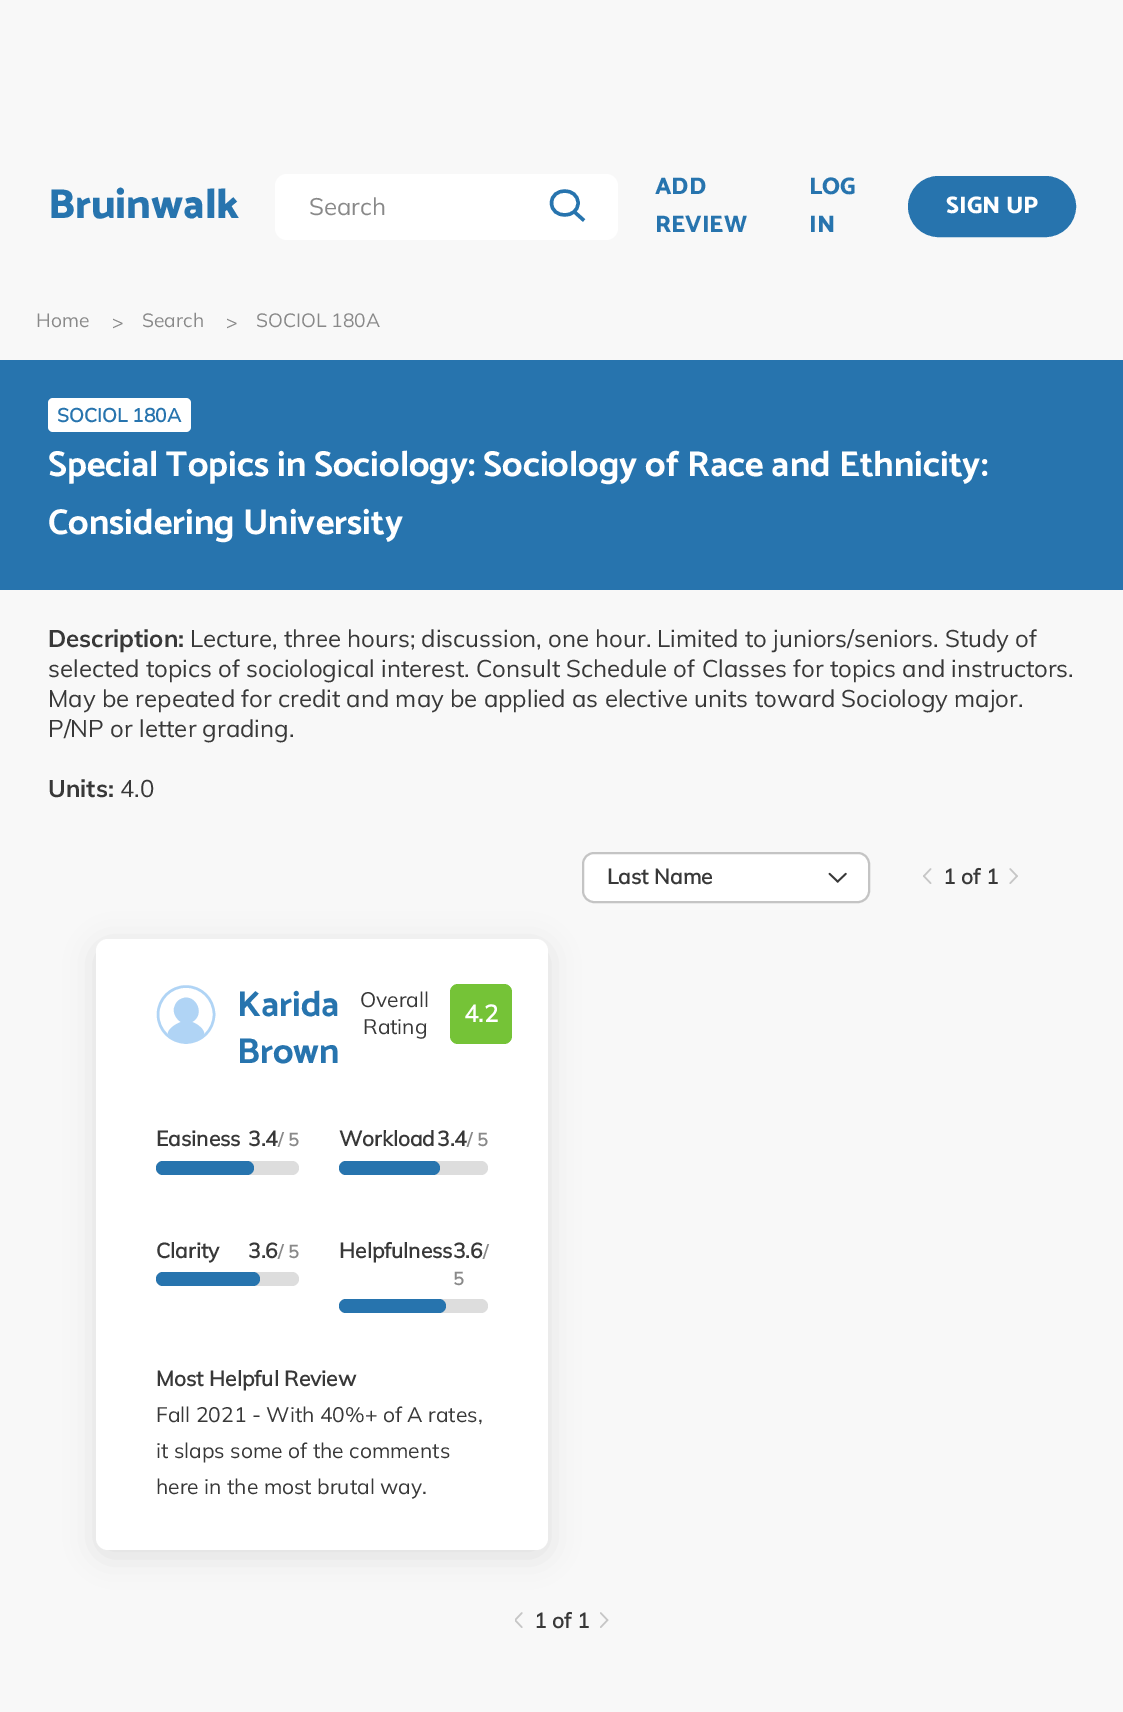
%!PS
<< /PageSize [1123 1712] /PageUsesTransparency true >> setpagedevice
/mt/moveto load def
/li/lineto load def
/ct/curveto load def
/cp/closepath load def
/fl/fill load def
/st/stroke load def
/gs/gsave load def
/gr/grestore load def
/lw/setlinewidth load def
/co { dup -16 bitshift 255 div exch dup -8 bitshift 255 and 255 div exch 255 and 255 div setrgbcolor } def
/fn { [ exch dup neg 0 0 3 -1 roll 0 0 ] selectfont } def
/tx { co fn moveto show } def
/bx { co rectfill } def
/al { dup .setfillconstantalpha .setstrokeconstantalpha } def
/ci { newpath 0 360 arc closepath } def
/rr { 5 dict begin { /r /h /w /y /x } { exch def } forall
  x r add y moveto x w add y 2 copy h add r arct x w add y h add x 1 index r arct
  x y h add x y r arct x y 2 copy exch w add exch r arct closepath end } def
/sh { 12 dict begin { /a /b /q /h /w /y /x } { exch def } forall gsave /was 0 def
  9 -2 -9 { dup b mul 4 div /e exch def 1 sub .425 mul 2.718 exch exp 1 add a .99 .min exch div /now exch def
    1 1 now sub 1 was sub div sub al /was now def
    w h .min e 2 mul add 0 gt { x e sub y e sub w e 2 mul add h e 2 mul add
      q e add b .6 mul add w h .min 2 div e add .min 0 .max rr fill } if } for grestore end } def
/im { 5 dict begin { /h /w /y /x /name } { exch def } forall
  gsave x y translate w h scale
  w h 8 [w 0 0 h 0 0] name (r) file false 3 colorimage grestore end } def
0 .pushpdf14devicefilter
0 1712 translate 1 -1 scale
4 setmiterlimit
0 0 1123 1712 16#F8F8F8 bx
16#FFFFFF co
275 174 343 66 12 rr fl
16#2774AE co
3.4 lw
578 203 mt 578 219 551.5 219 551.5 203 ct 551.5 187 578 187 578 203 ct cp 574 211.5 mt 584 220.5 li st
909 177 166 59 29.5 rr gs fl gr
2 lw
st
0 360 1123 230 16#2774AE bx
16#FFFFFF co
48 398 143 34 5 rr fl
16#000000 co
96 945 452 611 12 15 .1 sh
16#FFFFFF co
582 852 288 51 12 rr fl
0.5 al
16#898989 co
583 853 286 49 11 rr st
1 al
(media/1.raw) 828 872 19 11 im
(media/2.raw) 923 868 9 16 im
(media/3.raw) 1009 868 9 16 im
16#FFFFFF co
96 939 452 611 12 rr fl
16#B0D4F5 co
204 1034 mt 205 1030 198 1024 192 1022 ct 207 1014 194 990 179 1000 ct 176 1002 175 1005 174 1008 ct 173 1013 176 1019 181 1022 ct 175 1024 167 1030 168 1034 ct 175 1045 199 1044 204 1034 ct cp fl
gs
156 984 60 60 30 rr clip newpath
2.5 lw
186 1014.5 28 ci st
gr
16#75C337 co
450 984 62 60 8 rr fl
16#DDDDDD co
156 1161 143 14 7 rr fl
16#2774AE co
156 1161 98 14 7 rr fl
16#DDDDDD co
339 1161 149 14 7 rr fl
16#2774AE co
339 1161 101 14 7 rr fl
16#DDDDDD co
156 1272 143 14 7 rr fl
16#2774AE co
156 1272 104 14 7 rr fl
16#DDDDDD co
339 1299 149 14 7 rr fl
16#2774AE co
339 1299 107 14 7 rr fl
(media/4.raw) 515 1612 8 16 im
(media/5.raw) 600 1612 9 16 im
(Bruinwalk) 48 218 /Catamaran-ExtraBold 42 16#2774AE tx
(Search) 309 215 /Mulish-ExtraLight 24 16#898989 tx
(ADD) 655 194 /Catamaran-ExtraBold 24 16#2774AE tx
(REVIEW) 655 232 /Catamaran-ExtraBold 24 16#2774AE tx
(LOG) 809 194 /Catamaran-ExtraBold 24 16#2774AE tx
(IN) 809 232 /Catamaran-ExtraBold 24 16#2774AE tx
(SIGN UP) 946 213 /Catamaran-ExtraBold 24 16#FFFFFF tx
(Home) 36 327 /Mulish-ExtraLight 19.25 16#898989 tx
(>) 112 329 /Mulish-ExtraLight 19.25 16#898989 tx
(Search) 142 327 /Mulish-ExtraLight 19.25 16#898989 tx
(>) 226 329 /Mulish-ExtraLight 19.25 16#898989 tx
(SOCIOL 180A) 256 327 /Mulish-ExtraLight 19.25 16#898989 tx
(SOCIOL 180A) 57 422 /Mulish-Bold 19.25 16#2774AE tx
(Special Topics in Sociology: Sociology of Race and Ethnicity:) 48 476 /Catamaran-Bold 36 16#FFFFFF tx
(Considering University) 48 534 /Catamaran-Bold 36 16#FFFFFF tx
(Description:) 48 647 /Muli-Bold 24 16#383838 tx
(Lecture, three hours; discussion, one hour. Limited to juniors/seniors. Study of) 190 647 /Muli-Regular 24 16#383838 tx
(selected topics of sociological interest. Consult Schedule of Classes for topics and instructors.) 48 677 /Muli-Regular 24 16#383838 tx
(May be repeated for credit and may be applied as elective units toward Sociology major.) 48 707 /Muli-Regular 24 16#383838 tx
(P/NP or letter grading.) 48 737 /Muli-Regular 24 16#383838 tx
(Units:) 48 797 /Muli-Bold 24 16#383838 tx
(4.0) 120 797 /Muli-Regular 24 16#383838 tx
(Last Name) 607 884 /Mulish-Bold 21 16#383838 tx
(1 of 1) 943 884 /Mulish-Bold 21 16#383838 tx
(Karida) 237 1016 /Catamaran-Bold 36 16#2774AE tx
(Brown) 237 1063 /Catamaran-Bold 36 16#2774AE tx
(Overall) 360 1007 /Mulish-ExtraLight 21 16#383838 tx
(Rating) 363 1034 /Mulish-ExtraLight 21 16#383838 tx
(4.2) 464 1022 /Mulish-Bold 24 16#FFFFFF tx
(Easiness) 156 1146 /Mulish-Bold 21 16#383838 tx
(3.4) 248 1146 /Mulish-Bold 21 16#383838 tx
(/ 5) 278 1146 /Mulish-Bold 18 16#898989 tx
(Workload) 339 1146 /Mulish-Bold 21 16#383838 tx
(3.4) 437 1146 /Mulish-Bold 21 16#383838 tx
(/ 5) 467 1146 /Mulish-Bold 18 16#898989 tx
(Clarity) 156 1258 /Mulish-Bold 21 16#383838 tx
(3.6) 248 1258 /Mulish-Bold 21 16#383838 tx
(/ 5) 278 1258 /Mulish-Bold 18 16#898989 tx
(Helpfulness3.6) 339 1258 /Mulish-Bold 21 16#383838 tx
(/) 483 1258 /Mulish-Bold 18 16#898989 tx
(5) 453 1285 /Mulish-Bold 18 16#898989 tx
(Most Helpful Review) 156 1386 /Mulish-Bold 21 16#383838 tx
(Fall 2021 - With 40%+ of A rates,) 156 1422 /Mulish-ExtraLight 21 16#383838 tx
(it slaps some of the comments) 156 1458 /Mulish-ExtraLight 21 16#383838 tx
(here in the most brutal way.) 156 1494 /Mulish-ExtraLight 21 16#383838 tx
(1 of 1) 534 1628 /Mulish-Bold 21 16#383838 tx
.poppdf14devicefilter showpage
